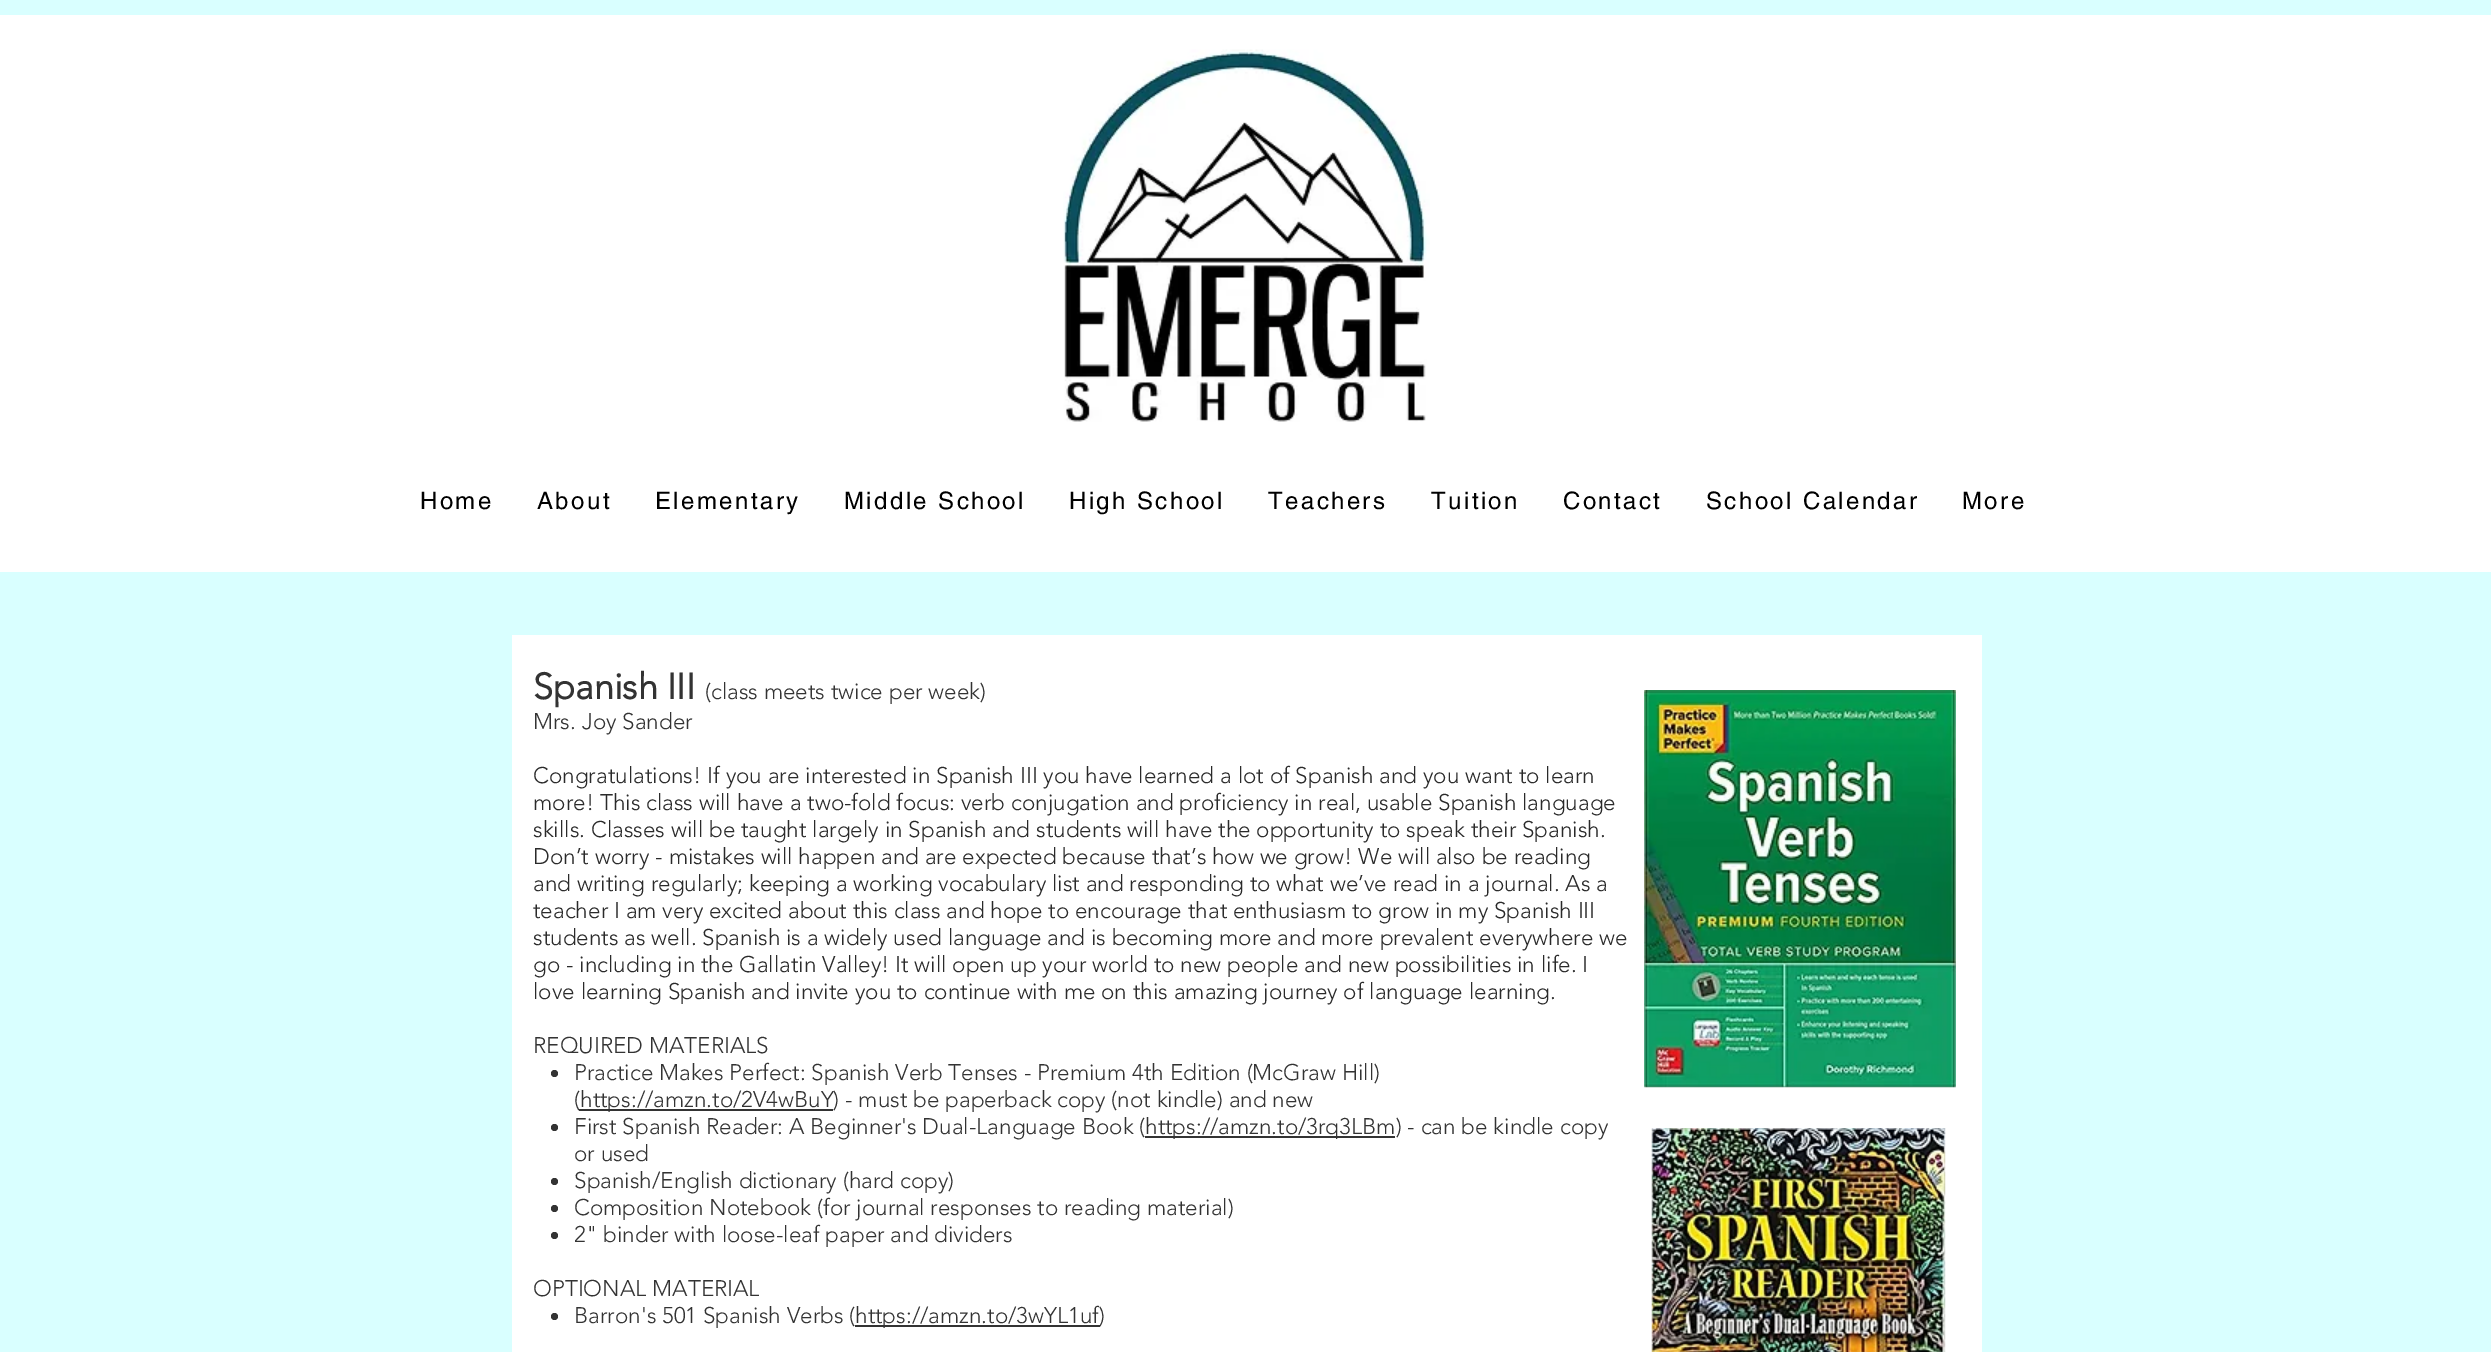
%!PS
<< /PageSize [2491 1352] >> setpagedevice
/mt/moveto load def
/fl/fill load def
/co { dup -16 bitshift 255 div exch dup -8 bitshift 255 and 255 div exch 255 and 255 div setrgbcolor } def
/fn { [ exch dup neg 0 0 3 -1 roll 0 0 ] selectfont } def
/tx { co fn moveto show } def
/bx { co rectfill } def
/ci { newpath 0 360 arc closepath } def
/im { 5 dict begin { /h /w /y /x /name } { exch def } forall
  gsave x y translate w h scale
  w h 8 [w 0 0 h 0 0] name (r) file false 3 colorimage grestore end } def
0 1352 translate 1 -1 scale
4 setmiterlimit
0 0 2491 1352 16#D9FFFF bx
0 15 2491 557 16#FFFFFF bx
(media/1.raw) 1063 49 367 373 im
512 635 1470 717 16#FFFFFF bx
16#333333 co
554.5 1073.5 3.5 ci fl
579 1109 254 2 16#333333 bx
554.5 1127.5 3.5 ci fl
1145 1136 250 2 16#333333 bx
554.5 1181.5 3.5 ci fl
554.5 1208.5 3.5 ci fl
554.5 1235.5 3.5 ci fl
554.5 1316.5 3.5 ci fl
855 1325 245 2 16#333333 bx
(media/2.raw) 1644 690 312 398 im
(media/3.raw) 1651 1128 295 224 im
/helvetica-Regular 24 fn
16#000000 co
420 509 mt 2.4 0 (Home) ashow
537 509 mt 2.4 0 (About) ashow
655 509 mt 2.4 0 (Elementary) ashow
844 509 mt 2.4 0 (Middle School) ashow
1069 509 mt 2.4 0 (High School) ashow
1268 509 mt 2.4 0 (Teachers) ashow
1431 509 mt 2.4 0 (Tuition) ashow
1563 509 mt 2.4 0 (Contact) ashow
1706 509 mt 2.4 0 (School Calendar) ashow
1962 509 mt 2.4 0 (More) ashow
(Spanish III) 533 699 /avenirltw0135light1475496-Bold 36 16#333333 tx
(\(class meets twice per week\)) 705 699 /avenirltw0135light1475496-Light 22.5 16#333333 tx
(Mrs. Joy Sander) 533 729 /avenirltw0135light1475496-Light 22.5 16#333333 tx
(Congratulations! If you are interested in Spanish III you have learned a lot of Spanish and you want to learn) 533 783 /avenirltw0135light1475496-Light 22.5 16#2A2A2A tx
(more! This class will have a two-fold focus: verb conjugation and proficiency in real, usable Spanish language) 533 810 /avenirltw0135light1475496-Light 22.5 16#2A2A2A tx
(skills. Classes will be taught largely in Spanish and students will have the opportunity to speak their Spanish.) 533 837 /avenirltw0135light1475496-Light 22.5 16#2A2A2A tx
(Don’t worry - mistakes will happen and are expected because that’s how we grow! We will also be reading) 533 864 /avenirltw0135light1475496-Light 22.5 16#2A2A2A tx
(and writing regularly; keeping a working vocabulary list and responding to what we’ve read in a journal. As a) 533 891 /avenirltw0135light1475496-Light 22.5 16#2A2A2A tx
(teacher I am very excited about this class and hope to encourage that enthusiasm to grow in my Spanish III) 533 918 /avenirltw0135light1475496-Light 22.5 16#2A2A2A tx
(students as well. Spanish is a widely used language and is becoming more and more prevalent everywhere we) 533 945 /avenirltw0135light1475496-Light 22.5 16#2A2A2A tx
(go - including in the Gallatin Valley! It will open up your world to new people and new possibilities in life. I) 533 972 /avenirltw0135light1475496-Light 22.5 16#2A2A2A tx
(love learning Spanish and invite you to continue with me on this amazing journey of language learning.) 533 999 /avenirltw0135light1475496-Light 22.5 16#2A2A2A tx
(REQUIRED MATERIALS) 533 1053 /avenirltw0135light1475496-Light 22.5 16#333333 tx
(Practice Makes Perfect: Spanish Verb Tenses - Premium 4th Edition \(McGraw Hill\)) 574 1080 /avenirltw0135light1475496-Light 22.5 16#333333 tx
(\() 574 1107 /avenirltw0135light1475496-Light 22.5 16#333333 tx
(https://amzn.to/2V4wBuY\) - must be paperback copy \(not kindle\) and new) 580 1107 /avenirltw0135light1475496-Light 22.5 16#333333 tx
(First Spanish Reader: A Beginner's Dual-Language Book \() 574 1134 /avenirltw0135light1475496-Light 22.5 16#333333 tx
(https://amzn.to/3rq3LBm\) - can be kindle copy) 1145 1134 /avenirltw0135light1475496-Light 22.5 16#333333 tx
(or used) 574 1161 /avenirltw0135light1475496-Light 22.5 16#333333 tx
(Spanish/English dictionary \(hard copy\)) 574 1188 /avenirltw0135light1475496-Light 22.5 16#333333 tx
(Composition Notebook \(for journal responses to reading material\)) 574 1215 /avenirltw0135light1475496-Light 22.5 16#333333 tx
(2" binder with loose-leaf paper and dividers) 574 1242 /avenirltw0135light1475496-Light 22.5 16#333333 tx
(OPTIONAL MATERIAL) 533 1296 /avenirltw0135light1475496-Light 22.5 16#333333 tx
(Barron's 501 Spanish Verbs \() 574 1323 /avenirltw0135light1475496-Light 22.5 16#333333 tx
(https://amzn.to/3wYL1uf\)) 855 1323 /avenirltw0135light1475496-Light 22.5 16#333333 tx
showpage
